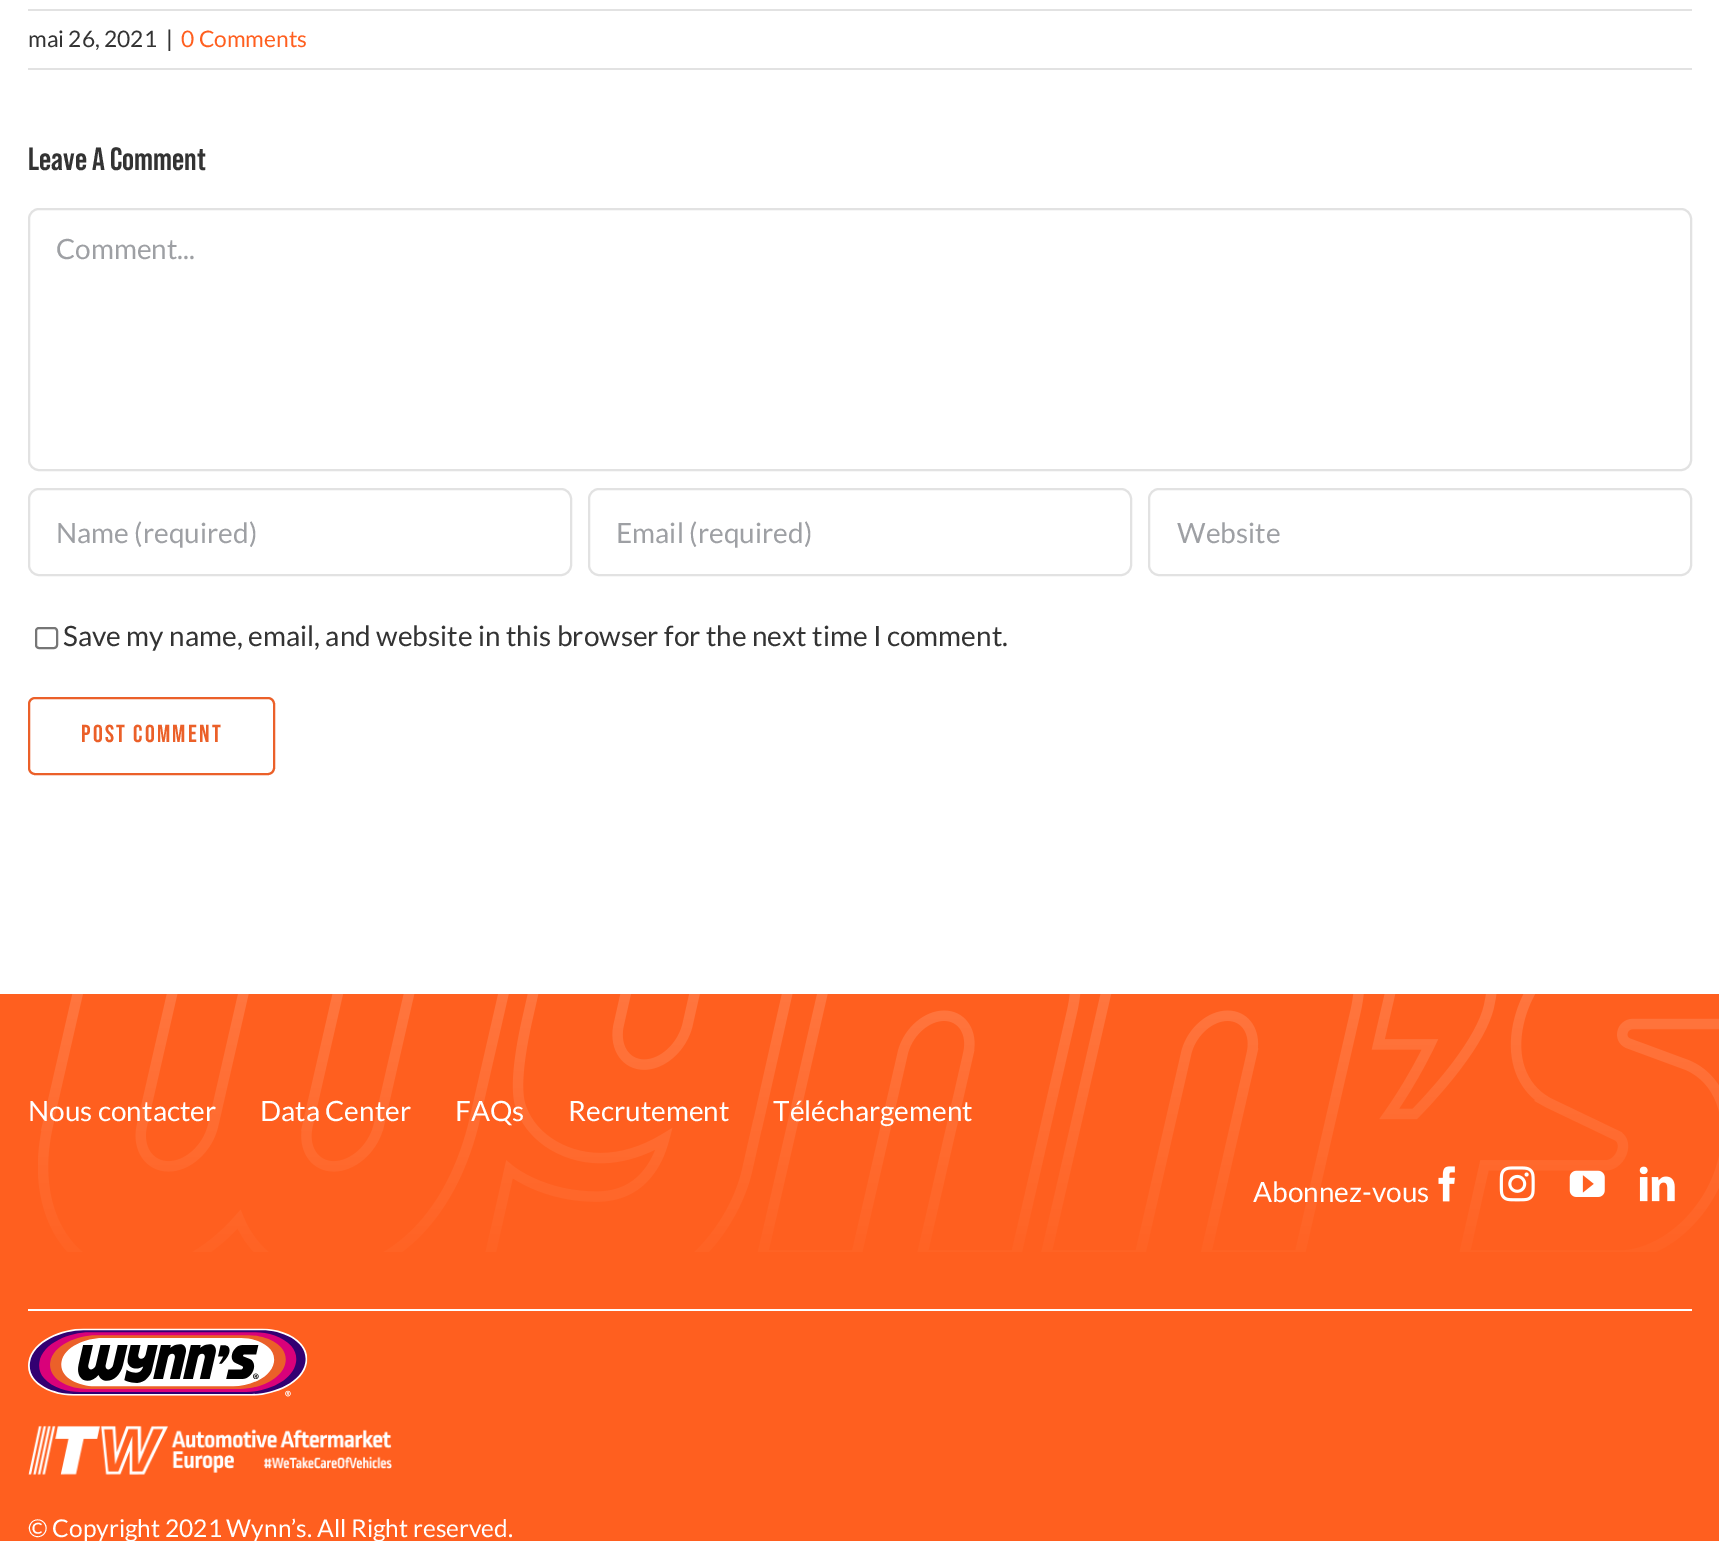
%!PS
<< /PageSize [1719 1541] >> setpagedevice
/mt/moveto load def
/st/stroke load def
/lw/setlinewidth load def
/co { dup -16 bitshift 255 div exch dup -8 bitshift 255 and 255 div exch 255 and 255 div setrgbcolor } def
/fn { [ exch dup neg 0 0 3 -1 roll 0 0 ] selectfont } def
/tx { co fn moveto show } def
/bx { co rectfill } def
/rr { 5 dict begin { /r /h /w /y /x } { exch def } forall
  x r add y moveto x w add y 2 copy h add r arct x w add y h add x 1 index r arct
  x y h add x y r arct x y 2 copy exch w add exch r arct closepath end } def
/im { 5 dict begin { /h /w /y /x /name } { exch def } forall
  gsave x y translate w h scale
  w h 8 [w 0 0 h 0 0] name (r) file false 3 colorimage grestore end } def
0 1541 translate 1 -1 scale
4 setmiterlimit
0 0 1719 1541 16#FFFFFF bx
28 9 1664 2 16#E2E2E2 bx
28 68 1664 2 16#E2E2E2 bx
2 lw
29 209 1662 261 10 rr st
29 489 542 86 10 rr st
589 489 542 86 10 rr st
1149 489 542 86 10 rr st
16#767676 co
36 628 21 20 3 rr st
16#EB6029 co
29 698 245 76 6 rr st
0 994 1719 547 16#FF5F1F bx
(media/1.raw) 38 994 1681 258 im
(media/2.raw) 1438 1166 17 36 im
(media/3.raw) 1499 1166 36 36 im
(media/4.raw) 1569 1170 36 27 im
(media/5.raw) 1639 1166 36 36 im
28 1309 1664 2 16#FFFFFF bx
(media/6.raw) 28 1328 280 69 im
(media/7.raw) 28 1425 364 50 im
(mai 26, 2021) 28 47 /Lato-Regular 22.75 16#333333 tx
(|) 166 47 /Lato-Regular 22.75 16#333333 tx
(0 Comments) 181 47 /Lato-Regular 22.75 16#FF5F1F tx
(Leave A Comment) 28 170 /BebasNeue-Bold 32.25 16#333333 tx
(Comment...) 56 259 /Lato-Regular 28 16#9EA0A4 tx
(Name \(required\)) 56 543 /Lato-Regular 28 16#9EA0A4 tx
(Email \(required\)) 616 543 /Lato-Regular 28 16#9EA0A4 tx
(Website) 1177 543 /Lato-Regular 28 16#9EA0A4 tx
(Save my name, email, and website in this browser for the next time I comment.) 63 646 /Lato-Regular 28 16#333333 tx
/BebasNeue-Bold 24.5 fn
16#EB6029 co
81 742 mt 2.25 0 (POST COMMENT) ashow
(Nous contacter) 28 1121 /Lato-Regular 28 16#FFFFFF tx
(Data Center) 260 1121 /Lato-Regular 28 16#FFFFFF tx
(FAQs) 455 1121 /Lato-Regular 28 16#FFFFFF tx
(Recrutement) 568 1121 /Lato-Regular 28 16#FFFFFF tx
(Téléchargement) 773 1121 /Lato-Regular 28 16#FFFFFF tx
(Abonnez-vous) 1253 1202 /Lato-Regular 28 16#FFFFFF tx
(© Copyright 2021 Wynn’s. All Right reserved.) 28 1537 /Lato-Regular 24.5 16#FFFFFF tx
showpage
